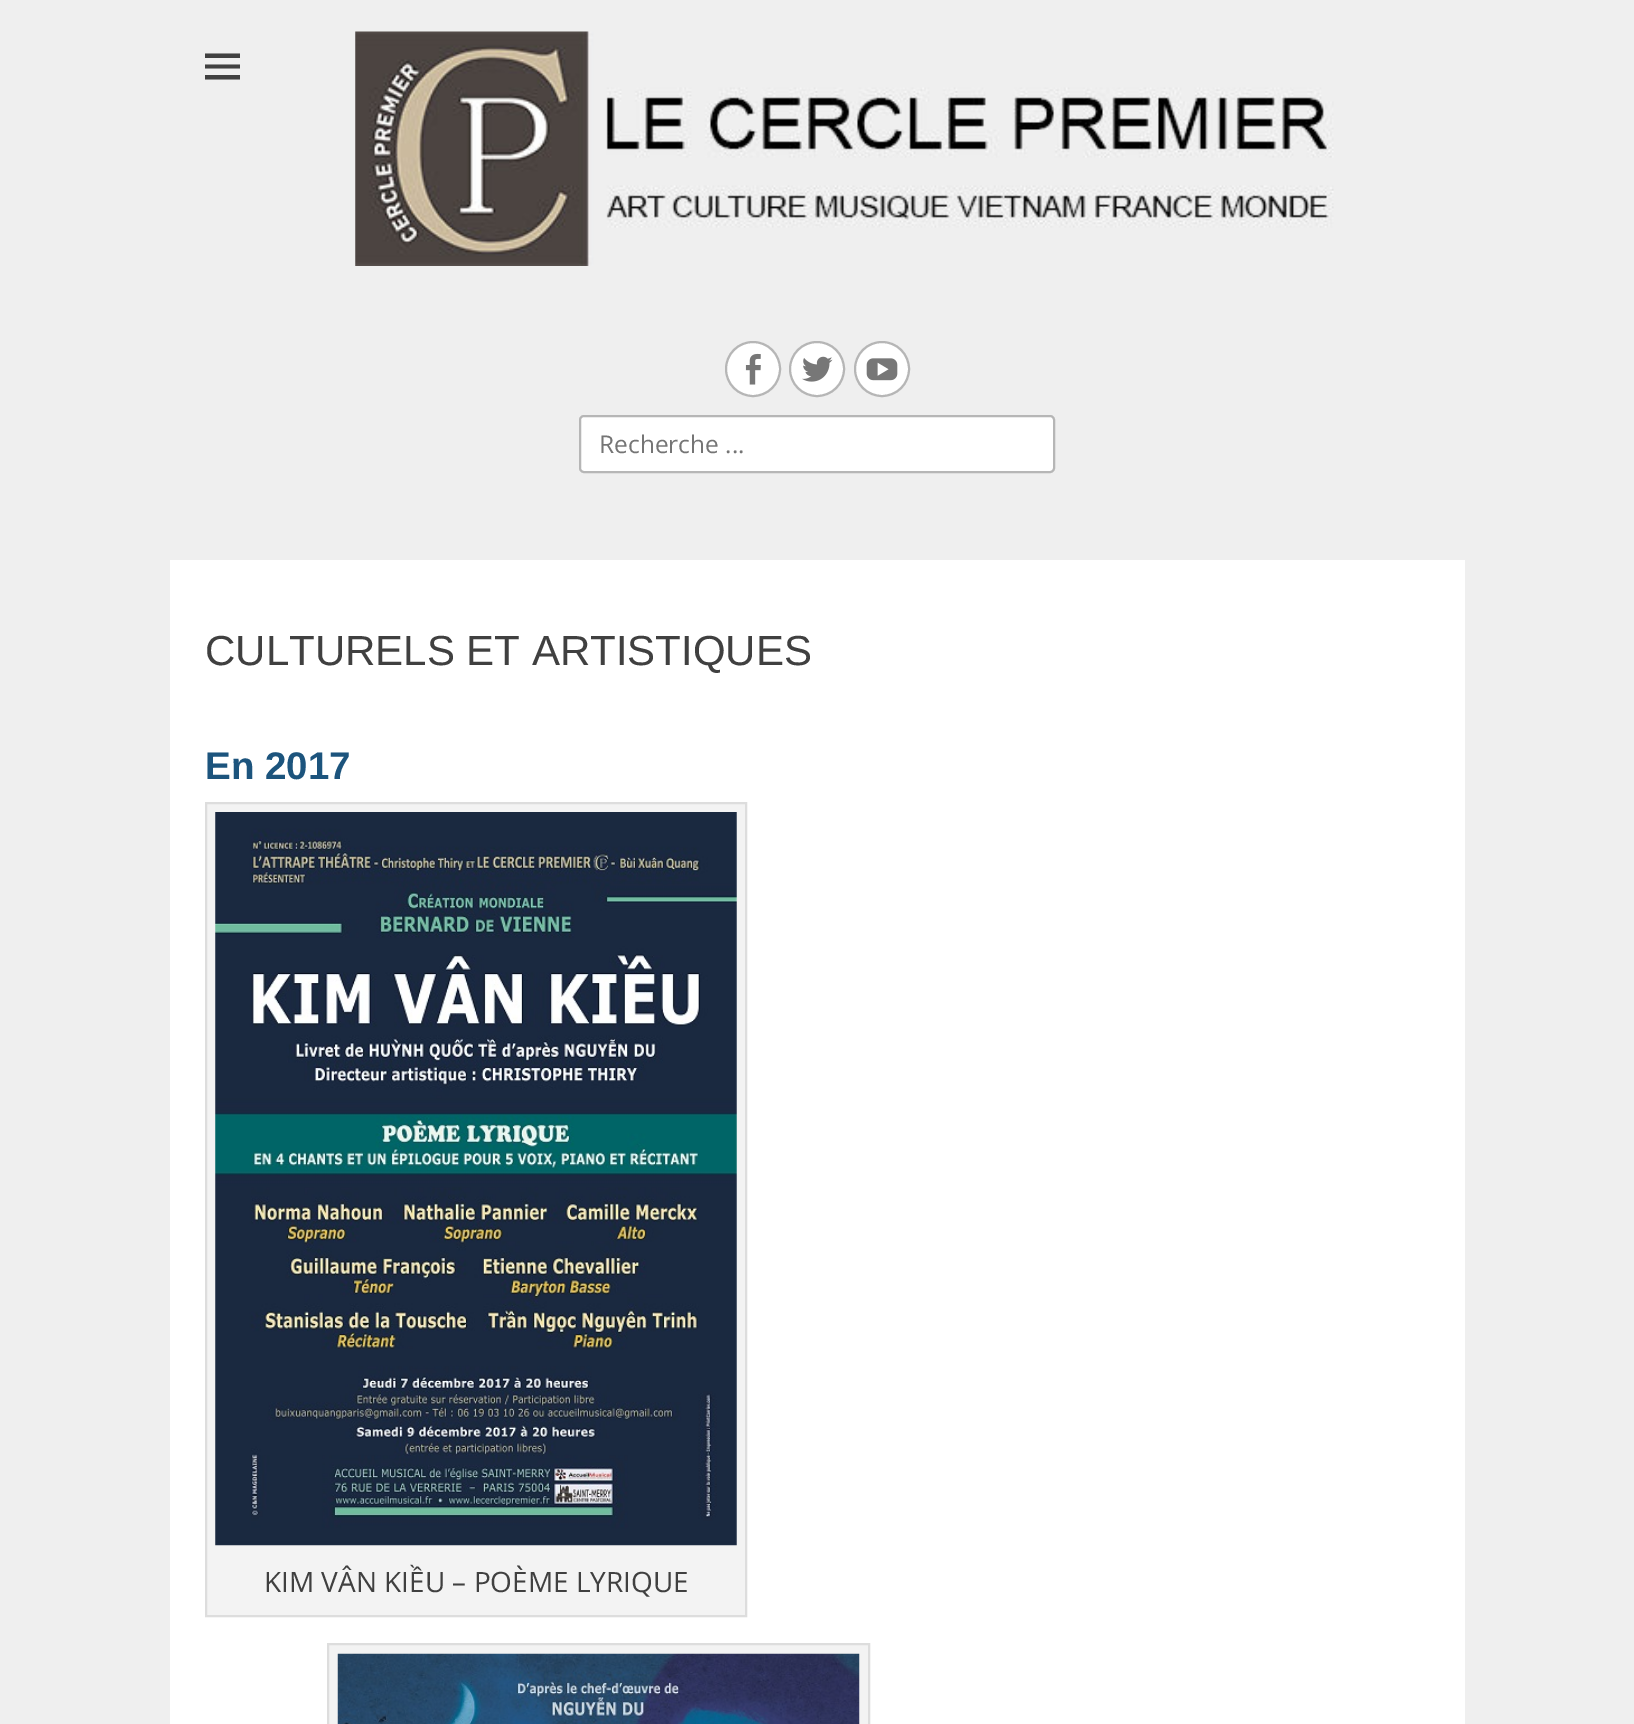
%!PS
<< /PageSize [1634 1724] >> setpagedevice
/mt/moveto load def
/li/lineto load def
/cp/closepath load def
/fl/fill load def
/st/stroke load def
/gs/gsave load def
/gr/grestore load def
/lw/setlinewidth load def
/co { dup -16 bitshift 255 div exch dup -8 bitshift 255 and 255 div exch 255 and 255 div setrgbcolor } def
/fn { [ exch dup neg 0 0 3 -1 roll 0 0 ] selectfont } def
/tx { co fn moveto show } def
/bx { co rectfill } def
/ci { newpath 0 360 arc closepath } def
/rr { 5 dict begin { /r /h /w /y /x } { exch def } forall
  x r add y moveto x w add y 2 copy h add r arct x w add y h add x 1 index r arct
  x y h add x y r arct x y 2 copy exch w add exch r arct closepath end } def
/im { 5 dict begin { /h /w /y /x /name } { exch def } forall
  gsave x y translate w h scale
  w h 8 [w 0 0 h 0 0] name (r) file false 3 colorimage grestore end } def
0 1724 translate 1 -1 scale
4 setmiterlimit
0 0 1634 1724 16#EFEFEF bx
16#404040 co
205 79.5 mt 205 75 li 240 75 li 240 79.5 li cp 205 53.5 mt 240 53.5 li 240 58 li 205 58 li cp 205 68.5 mt 205 64.5 li 240 64.5 li 240 68.5 li cp fl
(media/1.raw) 355 31 979 235 im
16#FFFFFF co
753 369 27 ci gs fl gr
16#B6B6B6 co
2 lw
st
(media/2.raw) 745 353 16 32 im
16#FFFFFF co
817 369 27 ci gs fl gr
16#B6B6B6 co
st
(media/3.raw) 802 356 31 26 im
16#FFFFFF co
882 369 27 ci gs fl gr
16#B6B6B6 co
st
(media/4.raw) 866 358 32 23 im
16#FFFFFF co
580 416 474 56 4 rr gs fl gr
16#B6B6B6 co
st
170 560 1295 1164 16#FFFFFF bx
16#F3F3F3 co
206 803 mt 746 803 li 746 1616 li 206 1616 li cp gs fl gr
16#DDDDDD co
st
(media/5.raw) 215 812 522 734 im
16#F3F3F3 co
328 1644 mt 869 1644 li 869 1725 li 328 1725 li cp gs fl gr
16#DDDDDD co
st
(media/6.raw) 337 1653 523 71 im
(Recherche ...) 599 453 /OpenSans-Regular 24.5 16#757575 tx
(CULTURELS ET ARTISTIQUES) 205 665 /LiberationSans-Regular 42 16#404040 tx
(En 2017) 205 779 /LiberationSans-Bold 38.5 16#1C547D tx
(KIM VÂN KIỀU – POÈME LYRIQUE) 264 1592 /OpenSans-Regular 28 16#404040 tx
showpage
